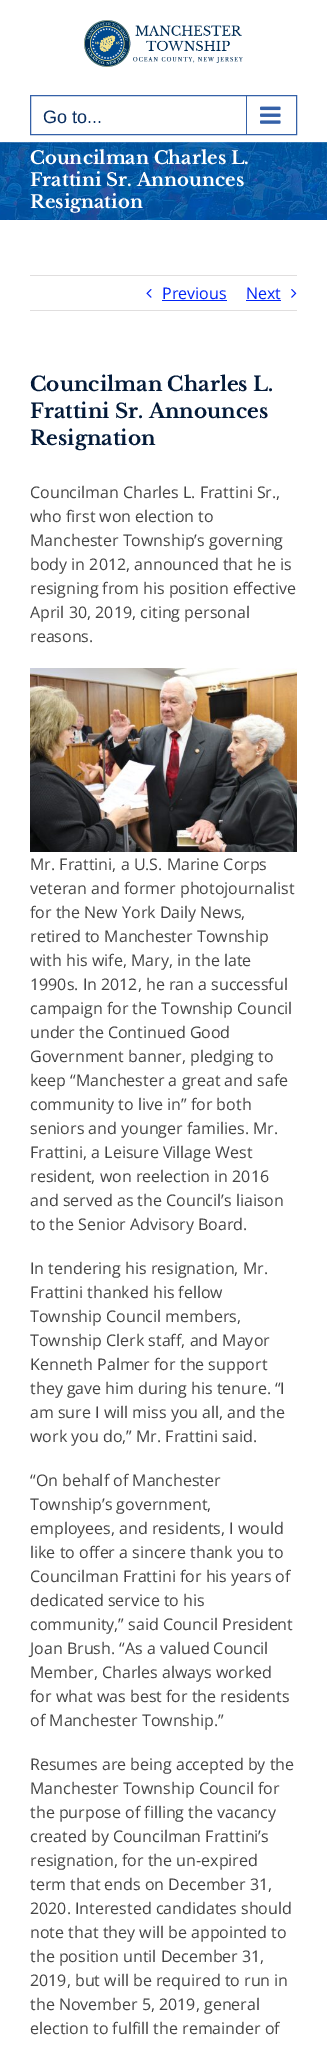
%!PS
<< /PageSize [327 2049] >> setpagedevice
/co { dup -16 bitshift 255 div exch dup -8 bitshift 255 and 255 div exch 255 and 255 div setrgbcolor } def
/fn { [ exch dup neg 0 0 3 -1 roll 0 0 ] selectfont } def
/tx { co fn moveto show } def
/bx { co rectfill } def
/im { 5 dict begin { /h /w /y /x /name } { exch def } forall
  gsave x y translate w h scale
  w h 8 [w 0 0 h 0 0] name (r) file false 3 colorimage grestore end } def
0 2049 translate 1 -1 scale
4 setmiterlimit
0 0 327 2049 16#FFFFFF bx
(media/1.raw) 84 20 159 47 im
16#3561A8 co
30.5 95.5 266 39 rectstroke
246 96 1 38 16#3561A8 bx
(media/2.raw) 260 106 21 18 im
(media/3.raw) 0 142 327 78 im
30 275 267 1 16#E0DEDE bx
30 310 267 1 16#E0DEDE bx
(media/4.raw) 146 289 6 9 im
162 300 65 1 16#0223F7 bx
246 300 35 1 16#0223F7 bx
(media/5.raw) 291 289 6 9 im
(media/6.raw) 30 668 267 184 im
(Go to...) 43 123 /LiberationSans-Regular 18 16#0C3062 tx
(Councilman Charles L.) 30 164 /LibreBaskerville-Bold 18 16#FFFFFF tx
(Frattini Sr. Announces) 30 186 /LibreBaskerville-Bold 18 16#FFFFFF tx
(Resignation) 30 208 /LibreBaskerville-Bold 18 16#FFFFFF tx
(Previous) 162 299 /OpenSans-Regular 16 16#0223F7 tx
(Next) 246 299 /OpenSans-Regular 16 16#0223F7 tx
(Councilman Charles L.) 30 391 /LibreBaskerville-Bold 20 16#031A39 tx
(Frattini Sr. Announces) 30 418 /LibreBaskerville-Bold 20 16#031A39 tx
(Resignation) 30 445 /LibreBaskerville-Bold 20 16#031A39 tx
(Councilman Charles L. Frattini Sr.,) 30 498 /OpenSans-Regular 16 16#454545 tx
(who first won election to) 30 522 /OpenSans-Regular 16 16#454545 tx
(Manchester Township’s governing) 30 546 /OpenSans-Regular 16 16#454545 tx
(body in 2012, announced that he is) 30 570 /OpenSans-Regular 16 16#454545 tx
(resigning from his position effective) 30 594 /OpenSans-Regular 16 16#454545 tx
(April 30, 2019, citing personal) 30 618 /OpenSans-Regular 16 16#454545 tx
(reasons.) 30 642 /OpenSans-Regular 16 16#454545 tx
(Mr. Frattini, a U.S. Marine Corps) 30 870 /OpenSans-Regular 16 16#454545 tx
(veteran and former photojournalist) 30 894 /OpenSans-Regular 16 16#454545 tx
(for the New York Daily News,) 30 918 /OpenSans-Regular 16 16#454545 tx
(retired to Manchester Township) 30 942 /OpenSans-Regular 16 16#454545 tx
(with his wife, Mary, in the late) 30 966 /OpenSans-Regular 16 16#454545 tx
(1990s. In 2012, he ran a successful) 30 990 /OpenSans-Regular 16 16#454545 tx
(campaign for the Township Council) 30 1014 /OpenSans-Regular 16 16#454545 tx
(under the Continued Good) 30 1038 /OpenSans-Regular 16 16#454545 tx
(Government banner, pledging to) 30 1062 /OpenSans-Regular 16 16#454545 tx
(keep “Manchester a great and safe) 30 1086 /OpenSans-Regular 16 16#454545 tx
(community to live in” for both) 30 1110 /OpenSans-Regular 16 16#454545 tx
(seniors and younger families. Mr.) 30 1134 /OpenSans-Regular 16 16#454545 tx
(Frattini, a Leisure Village West) 30 1158 /OpenSans-Regular 16 16#454545 tx
(resident, won reelection in 2016) 30 1182 /OpenSans-Regular 16 16#454545 tx
(and served as the Council’s liaison) 30 1206 /OpenSans-Regular 16 16#454545 tx
(to the Senior Advisory Board.) 30 1230 /OpenSans-Regular 16 16#454545 tx
(In tendering his resignation, Mr.) 30 1274 /OpenSans-Regular 16 16#454545 tx
(Frattini thanked his fellow) 30 1298 /OpenSans-Regular 16 16#454545 tx
(Township Council members,) 30 1322 /OpenSans-Regular 16 16#454545 tx
(Township Clerk staff, and Mayor) 30 1346 /OpenSans-Regular 16 16#454545 tx
(Kenneth Palmer for the support) 30 1370 /OpenSans-Regular 16 16#454545 tx
(they gave him during his tenure. “I) 30 1394 /OpenSans-Regular 16 16#454545 tx
(am sure I will miss you all, and the) 30 1418 /OpenSans-Regular 16 16#454545 tx
(work you do,” Mr. Frattini said.) 30 1442 /OpenSans-Regular 16 16#454545 tx
(“On behalf of Manchester) 30 1486 /OpenSans-Regular 16 16#454545 tx
(Township’s government,) 30 1510 /OpenSans-Regular 16 16#454545 tx
(employees, and residents, I would) 30 1534 /OpenSans-Regular 16 16#454545 tx
(like to offer a sincere thank you to) 30 1558 /OpenSans-Regular 16 16#454545 tx
(Councilman Frattini for his years of) 30 1582 /OpenSans-Regular 16 16#454545 tx
(dedicated service to his) 30 1606 /OpenSans-Regular 16 16#454545 tx
(community,” said Council President) 30 1630 /OpenSans-Regular 16 16#454545 tx
(Joan Brush. “As a valued Council) 30 1654 /OpenSans-Regular 16 16#454545 tx
(Member, Charles always worked) 30 1678 /OpenSans-Regular 16 16#454545 tx
(for what was best for the residents) 30 1702 /OpenSans-Regular 16 16#454545 tx
(of Manchester Township.”) 30 1726 /OpenSans-Regular 16 16#454545 tx
(Resumes are being accepted by the) 30 1770 /OpenSans-Regular 16 16#454545 tx
(Manchester Township Council for) 30 1794 /OpenSans-Regular 16 16#454545 tx
(the purpose of filling the vacancy) 30 1818 /OpenSans-Regular 16 16#454545 tx
(created by Councilman Frattini’s) 30 1842 /OpenSans-Regular 16 16#454545 tx
(resignation, for the un-expired) 30 1866 /OpenSans-Regular 16 16#454545 tx
(term that ends on December 31,) 30 1890 /OpenSans-Regular 16 16#454545 tx
(2020. Interested candidates should) 30 1914 /OpenSans-Regular 16 16#454545 tx
(note that they will be appointed to) 30 1938 /OpenSans-Regular 16 16#454545 tx
(the position until December 31,) 30 1962 /OpenSans-Regular 16 16#454545 tx
(2019, but will be required to run in) 30 1986 /OpenSans-Regular 16 16#454545 tx
(the November 5, 2019, general) 30 2010 /OpenSans-Regular 16 16#454545 tx
(election to fulfill the remainder of) 30 2034 /OpenSans-Regular 16 16#454545 tx
showpage
